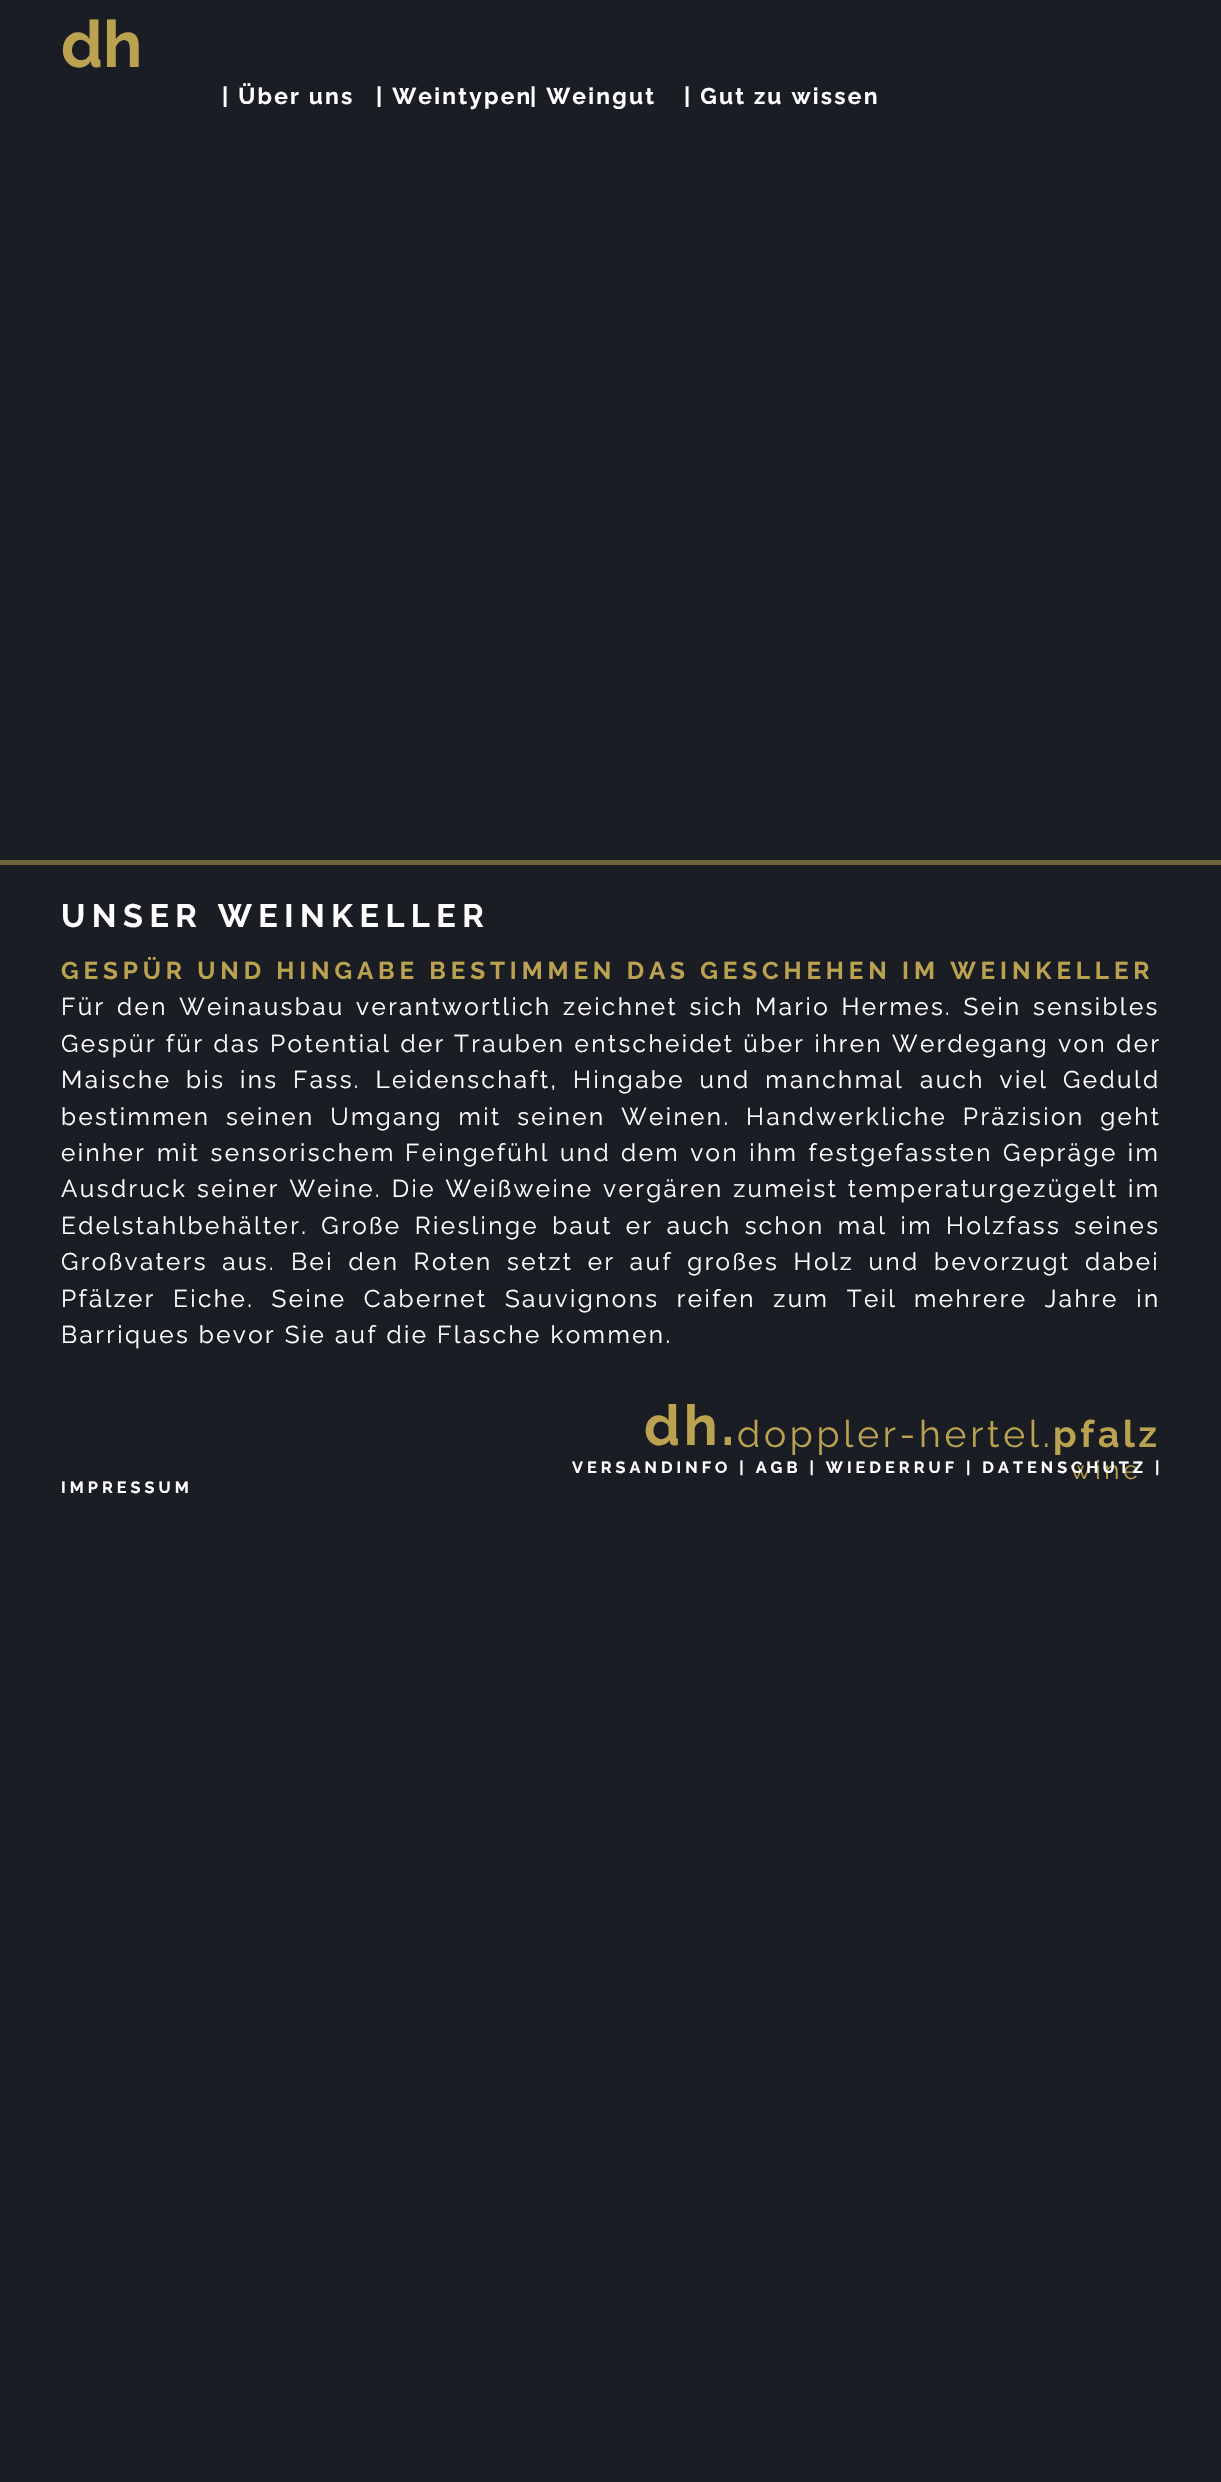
static SkFont makeFont(const char* family, int weight, float size, bool italic = false) {
  SkFontStyle style(weight, SkFontStyle::kNormal_Width,
    italic ? SkFontStyle::kItalic_Slant : SkFontStyle::kUpright_Slant);
  SkFont result(fontMgr->matchFamilyStyle(family, style), size);
  result.setSubpixel(true);
  return result;
}

static void text(SkCanvas* c, const char* s, float x, float y, const SkFont& font, SkColor color) {
  SkPaint ink(SkColor4f::FromColor(color));
  ink.setAntiAlias(true);
  c->drawString(s, x, y, font, ink);
}

static void spacedText(SkCanvas* c, const char* s, float x, float y, const SkFont& font, const SkPaint& ink, float letter, float word) {
  std::vector<SkGlyphID> glyphs(font.countText(s, strlen(s), SkTextEncoding::kUTF8));
  std::vector<float> xs(glyphs.size());
  font.textToGlyphs(s, strlen(s), SkTextEncoding::kUTF8, glyphs);
  font.getXPos(glyphs, xs, x);
  float extra = 0;
  for (size_t i = 0; i < glyphs.size(); i++) {
    xs[i] += extra;
    extra += letter + word * (glyphs[i] == font.unicharToGlyph(' '));
  }
  c->drawTextBlob(SkTextBlob::MakeFromPosHGlyphs(glyphs, xs, y, font), 0, 0, ink);
}

static void box(SkCanvas* c, float l, float t, float r, float b, SkColor color) {
  SkPaint ink(SkColor4f::FromColor(color));
  ink.setAntiAlias(true);
  c->drawRect(SkRect::MakeLTRB(l, t, r, b), ink);
}

void draw(SkCanvas* c) {
  SkPaint paint;
  paint.setAntiAlias(true);
  c->clear(0xff1b1d24);
  SkFont face1 = makeFont("Raleway", 700, 65);
  text(c, "dh", 61, 67, face1, 0xffbaa251);
  SkFont face2 = makeFont("Raleway", 700, 22.75f);
  paint.setColor(0xffffffff);
  spacedText(c, "| Über uns", 222, 104, face2, paint, 2.25f, 0);
  spacedText(c, "| Weintypen", 376, 104, face2, paint, 2.25f, 0);
  spacedText(c, "| Weingut", 530, 104, face2, paint, 2.25f, 0);
  spacedText(c, "| Gut zu wissen", 684, 104, face2, paint, 2.25f, 0);
  box(c, 0, 860, 1221, 865, 0xff70643c);
  SkFont face3 = makeFont("Raleway", 700, 32.4f);
  spacedText(c, "UNSER WEINKELLER", 61, 927, face3, paint, 6.5f, 0);
  SkFont face4 = makeFont("Raleway", 700, 24.3f);
  paint.setColor(0xffbaa251);
  spacedText(c, "GESPÜR UND HINGABE BESTIMMEN DAS GESCHEHEN IM WEINKELLER", 61, 979, face4, paint, 4.85f, -0.25f);
  SkFont face5 = makeFont("Raleway", 400, 24.3f);
  paint.setColor(0xffffffff);
  spacedText(c, "Für den Weinausbau verantwortlich zeichnet sich Mario Hermes. Sein sensibles", 61, 1015, face5, paint, 2.43f, 2.75f);
  spacedText(c, "Gespür für das Potential der", 61, 1052, face5, paint, 2.43f, 0.5f);
  spacedText(c, "Trauben entscheidet über ihren Werdegang von der", 454, 1052, face5, paint, 2.43f, 0.5f);
  spacedText(c, "Maische bis ins Fass. Leidenschaft, Hingabe und manchmal", 61, 1088, face5, paint, 2.43f, 6);
  spacedText(c, "auch viel Geduld", 920, 1088, face5, paint, 2.43f, 6);
  spacedText(c, "bestimmen seinen Umgang mit seinen Weinen. Handwerkliche Präzision geht", 61, 1125, face5, paint, 2.43f, 7);
  spacedText(c, "einher mit sensorischem", 61, 1161, face5, paint, 2.43f, 2);
  spacedText(c, "Feingefühl und dem von ihm festgefassten Gepräge im", 405, 1161, face5, paint, 2.43f, 1.5f);
  spacedText(c, "Ausdruck seiner Weine. Die Weißweine vergären zumeist", 61, 1197, face5, paint, 2.43f, 1);
  spacedText(c, "temperaturgezügelt im", 848, 1197, face5, paint, 2.43f, 1);
  spacedText(c, "Edelstahlbehälter. Große Rieslinge baut er auch schon mal im Holzfass seines", 61, 1234, face5, paint, 2.43f, 4.5f);
  spacedText(c, "Großvaters aus.", 61, 1270, face5, paint, 2.43f, 5.75f);
  spacedText(c, "Bei den Roten setzt er auf großes Holz und bevorzugt dabei", 291, 1270, face5, paint, 2.43f, 5.75f);
  spacedText(c, "Pfälzer Eiche. Seine Cabernet Sauvignons reifen zum Teil", 61, 1307, face5, paint, 2.43f, 8.75f);
  spacedText(c, "mehrere Jahre in", 914, 1307, face5, paint, 2.43f, 8.75f);
  spacedText(c, "Barriques bevor Sie auf die Flasche kommen.", 61, 1343, face5, paint, 2.43f, 0);
  SkFont face6 = makeFont("Raleway", 700, 56);
  paint.setColor(0xffbaa251);
  spacedText(c, "dh.", 644, 1445, face6, paint, 3.75f, 0);
  SkFont face7 = makeFont("Raleway", 400, 37.25f);
  spacedText(c, "doppler-hertel.", 737, 1447, face7, paint, 3.75f, 0);
  SkFont face8 = makeFont("Raleway", 700, 37.25f);
  spacedText(c, "pfalz", 1053, 1447, face8, paint, 3.75f, 0);
  SkFont face9 = makeFont("Raleway", 400, 26);
  spacedText(c, "wine", 1070, 1479, face9, paint, 3.75f, 0);
  SkFont face10 = makeFont("Raleway", 700, 16.2f);
  paint.setColor(0xffffffff);
  spacedText(c, "VERSANDINFO | AGB | WIEDERRUF | DATENSCHUTZ |", 572, 1473, face10, paint, 4.05f, 0);
  spacedText(c, "IMPRESSUM", 61, 1493, face10, paint, 4.05f, 0);
}
